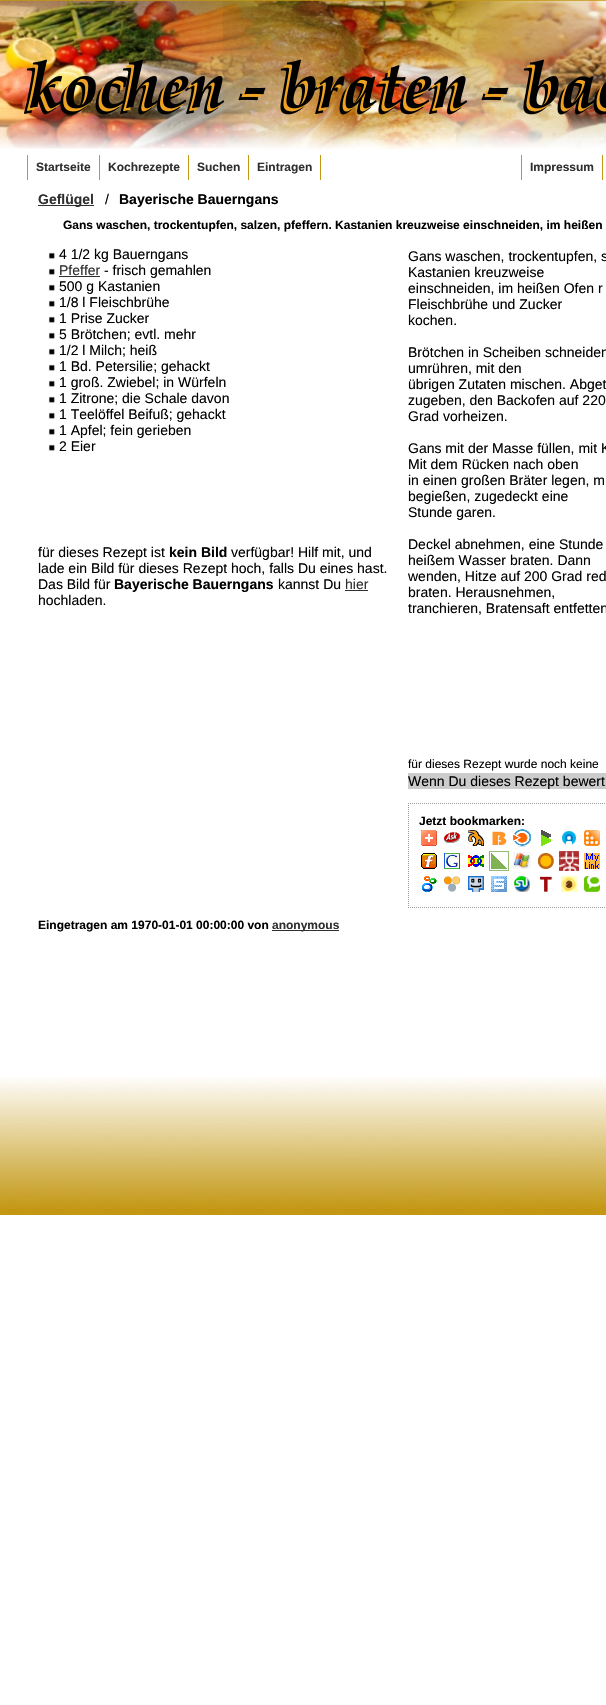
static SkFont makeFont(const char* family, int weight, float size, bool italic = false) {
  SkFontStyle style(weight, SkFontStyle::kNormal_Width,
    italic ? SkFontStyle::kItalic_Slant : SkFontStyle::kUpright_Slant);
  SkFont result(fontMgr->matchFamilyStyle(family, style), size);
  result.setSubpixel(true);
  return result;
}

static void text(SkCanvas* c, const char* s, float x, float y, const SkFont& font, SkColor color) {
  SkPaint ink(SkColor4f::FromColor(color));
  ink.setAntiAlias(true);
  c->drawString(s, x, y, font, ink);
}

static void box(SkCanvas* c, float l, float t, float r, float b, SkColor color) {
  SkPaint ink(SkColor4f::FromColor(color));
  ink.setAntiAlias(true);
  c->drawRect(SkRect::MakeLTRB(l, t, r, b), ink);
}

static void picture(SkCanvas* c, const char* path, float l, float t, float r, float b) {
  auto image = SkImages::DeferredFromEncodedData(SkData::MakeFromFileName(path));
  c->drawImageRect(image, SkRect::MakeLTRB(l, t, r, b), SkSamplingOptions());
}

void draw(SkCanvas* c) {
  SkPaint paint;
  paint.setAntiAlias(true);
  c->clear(0xffffffff);
  picture(c, "img_01.png", 0, 0, 606, 138);
  picture(c, "img_02.png", 0, 0, 606, 150);
  picture(c, "img_03.png", 24, 59, 606, 115);
  box(c, 99, 155, 100, 180, 0xffc49815);
  box(c, 27, 155, 28, 180, 0xffc49815);
  SkFont face1 = makeFont("Liberation Sans", 700, 12);
  text(c, "Startseite", 36, 171, face1, 0xff2f2f2f);
  box(c, 188, 155, 189, 180, 0xffc49815);
  text(c, "Kochrezepte", 108, 171, face1, 0xff2f2f2f);
  box(c, 248, 155, 249, 180, 0xffc49815);
  text(c, "Suchen", 197, 171, face1, 0xff2f2f2f);
  box(c, 320, 155, 321, 180, 0xffc49815);
  text(c, "Eintragen", 257, 171, face1, 0xff2f2f2f);
  box(c, 521, 155, 522, 180, 0xffc49815);
  box(c, 602, 155, 603, 180, 0xffc49815);
  text(c, "Impressum", 530, 171, face1, 0xff2f2f2f);
  box(c, 38, 205, 94, 206, 0xff2f2f2f);
  SkFont face2 = makeFont("Liberation Sans", 700, 14);
  text(c, "Geflügel", 38, 204, face2, 0xff2f2f2f);
  SkFont face3 = makeFont("Liberation Sans", 400, 14);
  text(c, "/", 105, 204, face3, 0xff000000);
  text(c, "Bayerische Bauerngans", 119, 204, face2, 0xff000000);
  text(c, "Gans waschen, trockentupfen, salzen, pfeffern. Kastanien kreuzweise einschneiden, im heißen", 63, 229, face1, 0xff000000);
  picture(c, "img_04.png", 48, 252, 55, 259);
  text(c, "4 1/2 kg Bauerngans", 59, 259, face3, 0xff000000);
  picture(c, "img_04.png", 48, 268, 55, 275);
  text(c, "Pfeffer", 59, 275, face3, 0xff2f2f2f);
  box(c, 59, 276, 100, 277, 0xff2f2f2f);
  text(c, "- frisch gemahlen", 104, 275, face3, 0xff000000);
  picture(c, "img_04.png", 48, 284, 55, 291);
  text(c, "500 g Kastanien", 59, 291, face3, 0xff000000);
  picture(c, "img_04.png", 48, 300, 55, 307);
  text(c, "1/8 l Fleischbrühe", 59, 307, face3, 0xff000000);
  picture(c, "img_04.png", 48, 316, 55, 323);
  text(c, "1 Prise Zucker", 59, 323, face3, 0xff000000);
  picture(c, "img_04.png", 48, 332, 55, 339);
  text(c, "5 Brötchen; evtl. mehr", 59, 339, face3, 0xff000000);
  picture(c, "img_04.png", 48, 348, 55, 355);
  text(c, "1/2 l Milch; heiß", 59, 355, face3, 0xff000000);
  picture(c, "img_04.png", 48, 364, 55, 371);
  text(c, "1 Bd. Petersilie; gehackt", 59, 371, face3, 0xff000000);
  picture(c, "img_04.png", 48, 380, 55, 387);
  text(c, "1 groß. Zwiebel; in Würfeln", 59, 387, face3, 0xff000000);
  picture(c, "img_04.png", 48, 396, 55, 403);
  text(c, "1 Zitrone; die Schale davon", 59, 403, face3, 0xff000000);
  picture(c, "img_04.png", 48, 412, 55, 419);
  text(c, "1 Teelöffel Beifuß; gehackt", 59, 419, face3, 0xff000000);
  picture(c, "img_04.png", 48, 428, 55, 435);
  text(c, "1 Apfel; fein gerieben", 59, 435, face3, 0xff000000);
  picture(c, "img_04.png", 48, 444, 55, 451);
  text(c, "2 Eier", 59, 451, face3, 0xff000000);
  text(c, "für dieses Rezept ist", 38, 557, face3, 0xff000000);
  text(c, "kein Bild", 169, 557, face2, 0xff000000);
  text(c, "verfügbar! Hilf mit, und", 231, 557, face3, 0xff000000);
  text(c, "lade ein Bild für dieses Rezept hoch, falls Du eines hast.", 38, 573, face3, 0xff000000);
  text(c, "Das Bild für", 38, 589, face3, 0xff000000);
  text(c, "Bayerische Bauerngans", 114, 589, face2, 0xff000000);
  text(c, "kannst Du", 278, 589, face3, 0xff000000);
  text(c, "hier", 345, 589, face3, 0xff2f2f2f);
  box(c, 345, 590, 368, 591, 0xff2f2f2f);
  text(c, "hochladen.", 38, 605, face3, 0xff000000);
  text(c, "Gans waschen, trockentupfen, s", 408, 261, face3, 0xff000000);
  text(c, "Kastanien kreuzweise", 408, 277, face3, 0xff000000);
  text(c, "einschneiden, im heißen Ofen r", 408, 293, face3, 0xff000000);
  text(c, "Fleischbrühe und Zucker", 408, 309, face3, 0xff000000);
  text(c, "kochen.", 408, 325, face3, 0xff000000);
  text(c, "Brötchen in Scheiben schneiden", 408, 357, face3, 0xff000000);
  text(c, "umrühren, mit den", 408, 373, face3, 0xff000000);
  text(c, "übrigen Zutaten mischen. Abget", 408, 389, face3, 0xff000000);
  text(c, "zugeben, den Backofen auf 220", 408, 405, face3, 0xff000000);
  text(c, "Grad vorheizen.", 408, 421, face3, 0xff000000);
  text(c, "Gans mit der Masse füllen, mit K", 408, 453, face3, 0xff000000);
  text(c, "Mit dem Rücken nach oben", 408, 469, face3, 0xff000000);
  text(c, "in einen großen Bräter legen, m", 408, 485, face3, 0xff000000);
  text(c, "begießen, zugedeckt eine", 408, 501, face3, 0xff000000);
  text(c, "Stunde garen.", 408, 517, face3, 0xff000000);
  text(c, "Deckel abnehmen, eine Stunde", 408, 549, face3, 0xff000000);
  text(c, "heißem Wasser braten. Dann", 408, 565, face3, 0xff000000);
  text(c, "wenden, Hitze auf 200 Grad red", 408, 581, face3, 0xff000000);
  text(c, "braten. Herausnehmen,", 408, 597, face3, 0xff000000);
  text(c, "tranchieren, Bratensaft entfetten", 408, 613, face3, 0xff000000);
  SkFont face4 = makeFont("Liberation Sans", 400, 12);
  text(c, "für dieses Rezept wurde noch keine", 408, 768, face4, 0xff000000);
  box(c, 408, 773, 606, 789, 0xffcccccc);
  text(c, "Wenn Du dieses Rezept bewert", 408, 786, face3, 0xff000000);
  paint.setStyle(SkPaint::kStroke_Style);
  paint.setStrokeWidth(1);
  paint.setColor(0xff999999);
  paint.setPathEffect(SkDashPathEffect::Make({{1, 1}}, 0));
  c->drawPath(SkPathBuilder().moveTo(408, 803.5f).lineTo(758, 803.5f).detach(), paint);
  paint.setPathEffect(nullptr);
  paint.setPathEffect(SkDashPathEffect::Make({{1, 1}}, 0));
  c->drawPath(SkPathBuilder().moveTo(408, 907.5f).lineTo(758, 907.5f).detach(), paint);
  paint.setPathEffect(nullptr);
  paint.setPathEffect(SkDashPathEffect::Make({{1, 1}}, 0));
  c->drawPath(SkPathBuilder().moveTo(408.5f, 803).lineTo(408.5f, 908).detach(), paint);
  paint.setPathEffect(nullptr);
  text(c, "Jetzt bookmarken:", 419, 825, face1, 0xff000000);
  picture(c, "img_05.png", 421, 830, 437, 846);
  picture(c, "img_06.png", 444, 832, 460, 843);
  picture(c, "img_07.png", 468, 830, 484, 846);
  picture(c, "img_08.png", 492, 831, 507, 845);
  picture(c, "img_09.png", 513, 829, 531, 847);
  picture(c, "img_10.png", 541, 830, 551, 846);
  picture(c, "img_11.png", 562, 831, 576, 845);
  picture(c, "img_12.png", 584, 830, 600, 846);
  picture(c, "img_13.png", 421, 853, 437, 869);
  picture(c, "img_14.png", 444, 853, 460, 869);
  picture(c, "img_15.png", 468, 855, 484, 867);
  picture(c, "img_16.png", 489, 851, 509, 871);
  picture(c, "img_17.png", 513, 852, 531, 869);
  picture(c, "img_18.png", 538, 853, 554, 869);
  picture(c, "img_19.png", 559, 851, 579, 871);
  picture(c, "img_20.png", 584, 853, 600, 869);
  picture(c, "img_21.png", 422, 876, 437, 892);
  picture(c, "img_22.png", 444, 876, 460, 892);
  picture(c, "img_23.png", 468, 876, 484, 892);
  picture(c, "img_24.png", 491, 876, 507, 892);
  picture(c, "img_25.png", 513, 875, 530, 892);
  picture(c, "img_26.png", 540, 876, 552, 892);
  picture(c, "img_27.png", 561, 876, 577, 892);
  picture(c, "img_28.png", 584, 876, 600, 892);
  text(c, "Eingetragen am 1970-01-01 00:00:00 von", 38, 929, face1, 0xff000000);
  box(c, 272, 930, 339, 931, 0xff2f2f2f);
  text(c, "anonymous", 272, 929, face1, 0xff2f2f2f);
  picture(c, "img_29.png", 0, 1076, 606, 1215);
}
